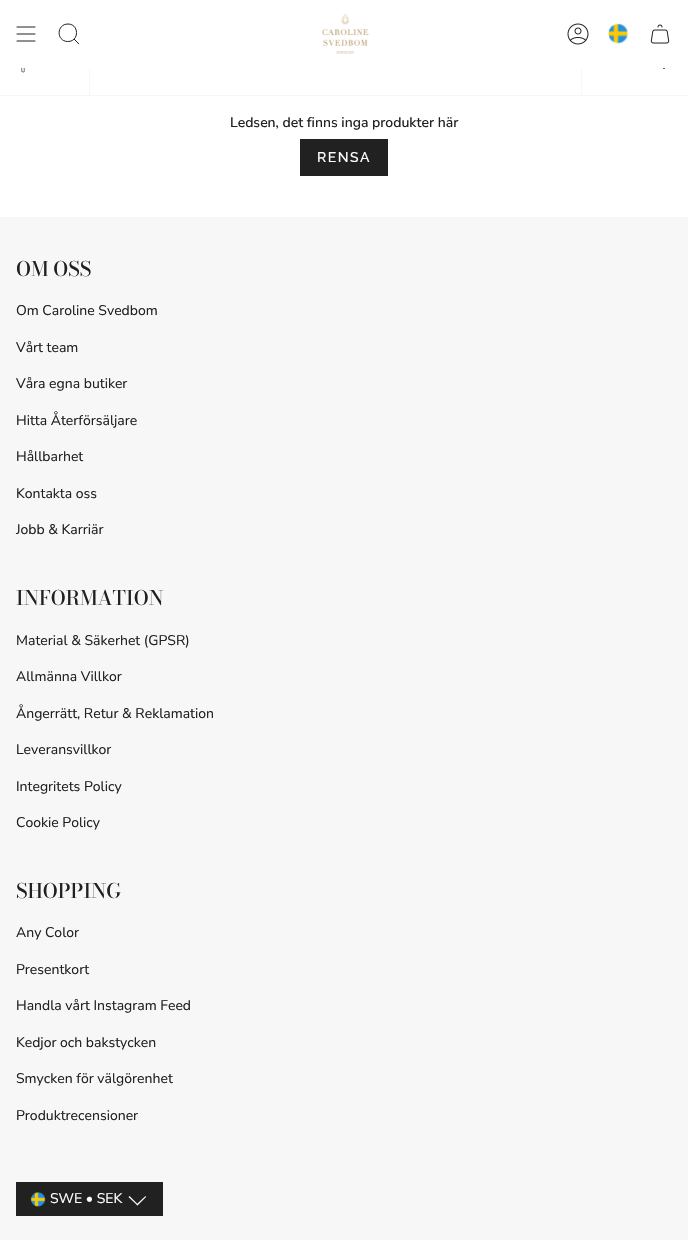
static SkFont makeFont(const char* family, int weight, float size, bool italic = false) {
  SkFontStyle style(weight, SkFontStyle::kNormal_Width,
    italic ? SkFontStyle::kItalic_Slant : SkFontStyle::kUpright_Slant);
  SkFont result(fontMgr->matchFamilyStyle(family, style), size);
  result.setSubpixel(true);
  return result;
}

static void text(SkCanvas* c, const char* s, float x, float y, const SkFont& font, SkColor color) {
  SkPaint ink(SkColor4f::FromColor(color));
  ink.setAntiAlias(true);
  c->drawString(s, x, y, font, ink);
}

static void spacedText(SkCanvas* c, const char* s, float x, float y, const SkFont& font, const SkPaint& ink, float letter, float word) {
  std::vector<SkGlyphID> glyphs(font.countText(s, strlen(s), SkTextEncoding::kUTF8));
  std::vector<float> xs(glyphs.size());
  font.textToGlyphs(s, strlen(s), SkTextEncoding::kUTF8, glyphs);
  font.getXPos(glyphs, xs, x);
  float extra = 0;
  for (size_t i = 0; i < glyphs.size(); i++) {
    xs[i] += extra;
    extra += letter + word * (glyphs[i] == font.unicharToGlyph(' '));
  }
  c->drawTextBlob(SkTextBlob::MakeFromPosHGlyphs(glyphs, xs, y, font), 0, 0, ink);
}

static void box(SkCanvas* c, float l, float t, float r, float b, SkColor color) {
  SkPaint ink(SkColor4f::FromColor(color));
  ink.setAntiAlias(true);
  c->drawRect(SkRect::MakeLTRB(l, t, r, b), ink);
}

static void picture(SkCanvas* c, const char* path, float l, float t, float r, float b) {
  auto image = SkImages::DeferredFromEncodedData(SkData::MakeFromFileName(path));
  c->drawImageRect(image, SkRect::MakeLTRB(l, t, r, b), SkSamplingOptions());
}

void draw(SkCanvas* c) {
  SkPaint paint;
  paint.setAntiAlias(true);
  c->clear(0xffffffff);
  paint.setStyle(SkPaint::kStroke_Style);
  paint.setStrokeWidth(1);
  paint.setStrokeCap(SkPaint::kRound_Cap);
  paint.setStrokeJoin(SkPaint::kRound_Join);
  paint.setColor(0xff212121);
  c->drawPath(SkPathBuilder().moveTo(17, 27).lineTo(35, 27).moveTo(17, 34).lineTo(35, 34).moveTo(17, 41).lineTo(35, 41).detach(), paint);
  paint.setStrokeCap(SkPaint::kButt_Cap);
  paint.setStrokeJoin(SkPaint::kMiter_Join);
  c->drawPath(SkPathBuilder().moveTo(68, 24).cubicTo(79.5f, 24, 79.5f, 42, 67.5f, 41.5f).cubicTo(56, 41, 56.5f, 24, 68, 24).close().moveTo(74, 39).lineTo(79, 44).detach(), paint);
  picture(c, "img_01.png", 322, 14, 369, 54);
  picture(c, "img_02.png", 567, 23, 589, 45);
  picture(c, "img_03.png", 608, 23, 629, 44);
  picture(c, "img_04.png", 650, 24, 670, 44);
  paint.setStrokeWidth(0.7f);
  paint.setStrokeCap(SkPaint::kRound_Cap);
  paint.setStrokeJoin(SkPaint::kRound_Join);
  c->drawPath(SkPathBuilder().moveTo(660, 65).lineTo(664, 69).lineTo(668, 65).detach(), paint);
  box(c, 659, 64, 669, 68, 0xffffffff);
  box(c, 0, 95, 688, 96, 0xfff7f7f7);
  box(c, 89, 68, 90, 95, 0xfff7f7f7);
  picture(c, "img_05.png", 21, 68, 25, 73);
  box(c, 581, 68, 582, 95, 0xfff7f7f7);
  SkFont face1 = makeFont("Nunito Sans", 500, 14);
  text(c, "Ledsen, det finns inga produkter här", 230, 127, face1, 0xff212121);
  box(c, 300, 139, 388, 176, 0xff212121);
  SkFont face2 = makeFont("Raleway", 500, 14);
  paint.setStyle(SkPaint::kFill_Style);
  paint.setColor(0xffffffff);
  spacedText(c, "RENSA", 317, 162, face2, paint, 1.5f, 0);
  box(c, 0, 217, 688, 1240, 0xfff7f7f7);
  SkFont face3 = makeFont("Bodoni Moda", 500, 20);
  text(c, "OM OSS", 16, 276, face3, 0xff212121);
  SkFont face4 = makeFont("Nunito Sans", 400, 14);
  text(c, "Om Caroline Svedbom", 16, 315, face4, 0xff212121);
  text(c, "Vårt team", 16, 352, face4, 0xff212121);
  text(c, "Våra egna butiker", 16, 388, face4, 0xff212121);
  text(c, "Hitta Återförsäljare", 16, 425, face4, 0xff212121);
  text(c, "Hållbarhet", 16, 461, face4, 0xff212121);
  text(c, "Kontakta oss", 16, 498, face4, 0xff212121);
  text(c, "Jobb & Karriär", 16, 534, face4, 0xff212121);
  text(c, "INFORMATION", 16, 605, face3, 0xff212121);
  text(c, "Material & Säkerhet (GPSR)", 16, 645, face4, 0xff212121);
  text(c, "Allmänna Villkor", 16, 681, face4, 0xff212121);
  text(c, "Ångerrätt, Retur & Reklamation", 16, 718, face4, 0xff212121);
  text(c, "Leveransvillkor", 16, 754, face4, 0xff212121);
  text(c, "Integritets Policy", 16, 791, face4, 0xff212121);
  text(c, "Cookie Policy", 16, 827, face4, 0xff212121);
  text(c, "SHOPPING", 16, 898, face3, 0xff212121);
  text(c, "Any Color", 16, 937, face4, 0xff212121);
  text(c, "Presentkort", 16, 974, face4, 0xff212121);
  text(c, "Handla vårt Instagram Feed", 16, 1010, face4, 0xff212121);
  text(c, "Kedjor och bakstycken", 16, 1047, face4, 0xff212121);
  text(c, "Smycken för välgörenhet", 16, 1083, face4, 0xff212121);
  text(c, "Produktrecensioner", 16, 1120, face4, 0xff212121);
  box(c, 16, 1182, 163, 1216, 0xff212121);
  picture(c, "img_06.png", 30, 1192, 46, 1207);
  text(c, "SWE • SEK", 50, 1203, face4, 0xffffffff);
  c->drawPath(SkPathBuilder().moveTo(146, 1197).lineTo(137.5f, 1205.5f).lineTo(136.5f, 1204.5f).lineTo(145.5f, 1196).close().detach(), paint);
  c->drawPath(SkPathBuilder().moveTo(138, 1204.5f).lineTo(137.5f, 1205.5f).lineTo(128.5f, 1197).lineTo(129.5f, 1196).close().detach(), paint);
}
